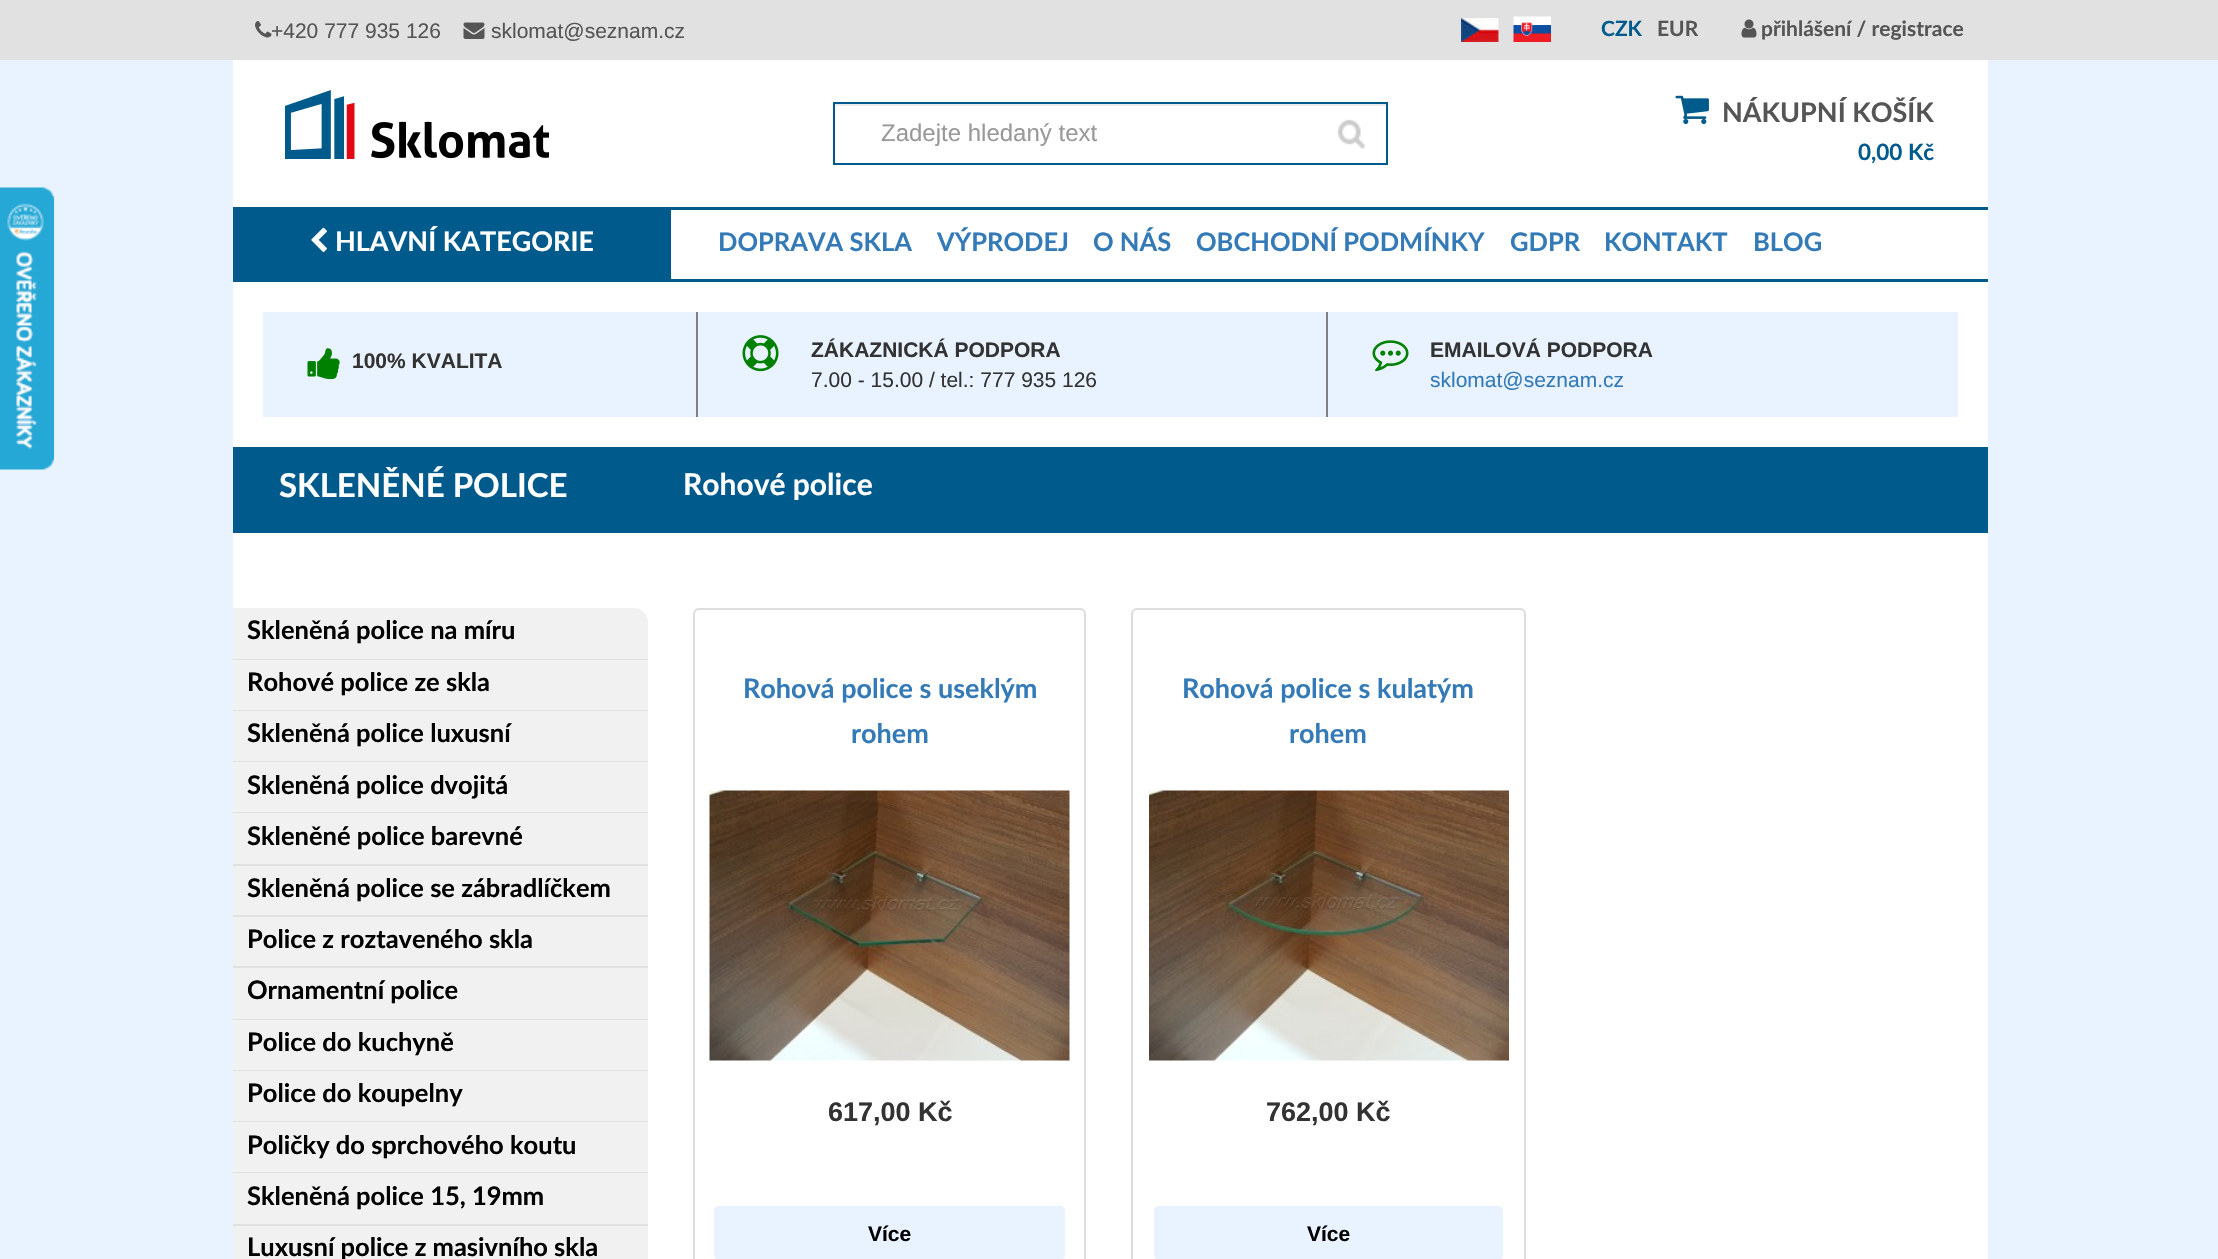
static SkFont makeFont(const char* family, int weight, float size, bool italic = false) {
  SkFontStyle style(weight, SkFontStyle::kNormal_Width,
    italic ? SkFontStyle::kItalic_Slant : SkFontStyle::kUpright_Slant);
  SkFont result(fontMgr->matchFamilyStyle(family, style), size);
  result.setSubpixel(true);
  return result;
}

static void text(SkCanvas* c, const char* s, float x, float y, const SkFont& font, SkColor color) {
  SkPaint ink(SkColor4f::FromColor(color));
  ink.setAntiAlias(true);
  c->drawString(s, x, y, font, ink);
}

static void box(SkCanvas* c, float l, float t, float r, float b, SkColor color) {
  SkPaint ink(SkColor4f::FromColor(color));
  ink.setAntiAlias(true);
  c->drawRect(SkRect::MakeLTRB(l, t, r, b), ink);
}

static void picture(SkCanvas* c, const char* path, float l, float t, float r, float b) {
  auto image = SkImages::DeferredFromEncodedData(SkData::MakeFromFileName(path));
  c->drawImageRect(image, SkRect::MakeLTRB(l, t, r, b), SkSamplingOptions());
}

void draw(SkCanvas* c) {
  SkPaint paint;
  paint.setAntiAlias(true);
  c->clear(0xffe8f3ff);
  box(c, 0, 0, 2218, 60, 0xffe1e1e1);
  picture(c, "img_01.png", 255, 21, 272, 38);
  SkFont face1 = makeFont("Liberation Sans", 400, 21);
  text(c, "+420 777 935 126", 271, 38, face1, 0xff555555);
  picture(c, "img_02.png", 463, 22, 485, 39);
  text(c, "sklomat@seznam.cz", 491, 38, face1, 0xff555555);
  picture(c, "img_03.png", 1461, 18, 1499, 42);
  picture(c, "img_04.png", 1513, 16, 1551, 42);
  SkFont face2 = makeFont("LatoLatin", 700, 21);
  text(c, "CZK", 1601, 36, face2, 0xff005a8c);
  text(c, "EUR", 1657, 36, face2, 0xff555555);
  picture(c, "img_05.png", 1741, 19, 1757, 38);
  text(c, "přihlášení / registrace", 1761, 36, face2, 0xff555555);
  picture(c, "img_06.png", 0, 187, 54, 470);
  box(c, 233, 60, 1988, 1259, 0xffffffff);
  picture(c, "img_07.png", 285, 90, 549, 159);
  picture(c, "img_08.png", 1337, 119, 1366, 149);
  box(c, 834, 104, 1386, 106, 0xffececec);
  paint.setStyle(SkPaint::kStroke_Style);
  paint.setStrokeWidth(2);
  paint.setColor(0xff005a8c);
  c->drawRect(SkRect::MakeLTRB(834, 103, 1387, 164), paint);
  SkFont face3 = makeFont("Liberation Sans", 400, 24);
  text(c, "Zadejte hledaný text", 881, 141, face3, 0xff999999);
  picture(c, "img_09.png", 1675, 95, 1709, 125);
  SkFont face4 = makeFont("LatoLatin", 700, 27);
  text(c, "NÁKUPNÍ KOŠÍK", 1722, 122, face4, 0xff555555);
  SkFont face5 = makeFont("LatoLatin", 700, 22.5f);
  text(c, "0,00 Kč", 1858, 160, face5, 0xff005a8c);
  box(c, 233, 207, 671, 282, 0xff005a8c);
  picture(c, "img_10.png", 311, 227, 327, 252);
  text(c, "HLAVNÍ KATEGORIE", 335, 251, face4, 0xffffffff);
  box(c, 671, 207, 1988, 210, 0xff005a8c);
  SkFont face6 = makeFont("LatoLatin", 700, 25.5f);
  text(c, "DOPRAVA SKLA", 718, 251, face6, 0xff337ab7);
  text(c, "VÝPRODEJ", 937, 251, face6, 0xff337ab7);
  text(c, "O NÁS", 1093, 251, face6, 0xff337ab7);
  text(c, "OBCHODNÍ PODMÍNKY", 1196, 251, face6, 0xff337ab7);
  text(c, "GDPR", 1510, 251, face6, 0xff337ab7);
  text(c, "KONTAKT", 1604, 251, face6, 0xff337ab7);
  text(c, "BLOG", 1753, 251, face6, 0xff337ab7);
  box(c, 671, 279, 1988, 282, 0xff005a8c);
  box(c, 263, 312, 1958, 417, 0xffe8f3ff);
  box(c, 696, 312, 698, 417, 0xff808080);
  picture(c, "img_11.png", 307, 348, 340, 380);
  SkFont face7 = makeFont("Liberation Sans", 700, 21);
  text(c, "100% KVALITA", 352, 368, face7, 0xff333333);
  box(c, 1326, 312, 1328, 417, 0xff808080);
  picture(c, "img_12.png", 742, 335, 779, 372);
  text(c, "ZÁKAZNICKÁ PODPORA", 811, 357, face7, 0xff333333);
  text(c, "7.00 - 15.00 / tel.: 777 935 126", 811, 387, face1, 0xff333333);
  picture(c, "img_13.png", 1372, 340, 1409, 372);
  text(c, "EMAILOVÁ PODPORA", 1430, 357, face7, 0xff333333);
  text(c, "sklomat@seznam.cz", 1430, 387, face1, 0xff337ab7);
  box(c, 233, 447, 1988, 533, 0xff005a8c);
  SkFont face8 = makeFont("LatoLatin", 700, 33);
  text(c, "SKLENĚNÉ POLICE", 279, 497, face8, 0xffffffff);
  SkFont face9 = makeFont("LatoLatin", 700, 30);
  text(c, "Rohové police", 683, 495, face9, 0xffffffff);
  paint.setStyle(SkPaint::kFill_Style);
  paint.setColor(0xfff1f1f1);
  c->drawPath(SkPathBuilder().moveTo(233, 608).lineTo(633, 608).cubicTo(641.5f, 608, 648, 614.5f, 648, 623).lineTo(648, 660).lineTo(233, 660).close().detach(), paint);
  box(c, 233, 659, 648, 660, 0xffe1e1e1);
  text(c, "Skleněná police na míru", 247, 639, face6, 0xff000000);
  box(c, 233, 660, 648, 710, 0xfff1f1f1);
  box(c, 233, 710, 648, 711, 0xffe1e1e1);
  text(c, "Rohové police ze skla", 247, 691, face6, 0xff000000);
  box(c, 233, 711, 648, 761, 0xfff1f1f1);
  box(c, 233, 761, 648, 762, 0xffe1e1e1);
  text(c, "Skleněná police luxusní", 247, 742, face6, 0xff000000);
  box(c, 233, 762, 648, 812, 0xfff1f1f1);
  box(c, 233, 812, 648, 813, 0xffe1e1e1);
  text(c, "Skleněná police dvojitá", 247, 794, face6, 0xff000000);
  box(c, 233, 813, 648, 864, 0xfff1f1f1);
  box(c, 233, 864, 648, 866, 0xffe1e1e1);
  text(c, "Skleněné police barevné", 247, 845, face6, 0xff000000);
  box(c, 233, 866, 648, 915, 0xfff1f1f1);
  box(c, 233, 915, 648, 917, 0xffe1e1e1);
  text(c, "Skleněná police se zábradlíčkem", 247, 897, face6, 0xff000000);
  box(c, 233, 917, 648, 966, 0xfff1f1f1);
  box(c, 233, 966, 648, 968, 0xffe1e1e1);
  text(c, "Police z roztaveného skla", 247, 948, face6, 0xff000000);
  box(c, 233, 968, 648, 1019, 0xfff1f1f1);
  box(c, 233, 1019, 648, 1020, 0xffe1e1e1);
  text(c, "Ornamentní police", 247, 999, face6, 0xff000000);
  box(c, 233, 1020, 648, 1070, 0xfff1f1f1);
  box(c, 233, 1070, 648, 1071, 0xffe1e1e1);
  text(c, "Police do kuchyně", 247, 1051, face6, 0xff000000);
  box(c, 233, 1071, 648, 1121, 0xfff1f1f1);
  box(c, 233, 1121, 648, 1122, 0xffe1e1e1);
  text(c, "Police do koupelny", 247, 1102, face6, 0xff000000);
  box(c, 233, 1122, 648, 1172, 0xfff1f1f1);
  box(c, 233, 1172, 648, 1173, 0xffe1e1e1);
  text(c, "Poličky do sprchového koutu", 247, 1154, face6, 0xff000000);
  box(c, 233, 1173, 648, 1224, 0xfff1f1f1);
  box(c, 233, 1224, 648, 1226, 0xffe1e1e1);
  text(c, "Skleněná police 15, 19mm", 247, 1205, face6, 0xff000000);
  box(c, 233, 1226, 648, 1259, 0xfff1f1f1);
  text(c, "Luxusní police z masivního skla", 247, 1256, face6, 0xff000000);
  paint.setStyle(SkPaint::kStroke_Style);
  paint.setColor(0xffdddddd);
  c->drawRoundRect(SkRect::MakeLTRB(694, 609, 1085, 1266), 5, 5, paint);
  text(c, "Rohová police s useklým", 743, 698, face4, 0xff337ab7);
  text(c, "rohem", 851, 743, face4, 0xff337ab7);
  picture(c, "img_14.png", 709, 790, 1070, 1061);
  SkFont face10 = makeFont("Liberation Sans", 700, 27);
  text(c, "617,00 Kč", 828, 1121, face10, 0xff333333);
  paint.setStyle(SkPaint::kFill_Style);
  paint.setColor(0xffe8f3ff);
  c->drawRoundRect(SkRect::MakeLTRB(715.5f, 1207.5f, 1063.5f, 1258.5f), 3.5f, 3.5f, paint);
  paint.setStyle(SkPaint::kStroke_Style);
  paint.setStrokeWidth(3);
  c->drawRoundRect(SkRect::MakeLTRB(715.5f, 1207.5f, 1063.5f, 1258.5f), 3.5f, 3.5f, paint);
  text(c, "Více", 868, 1241, face7, 0xff000000);
  paint.setStrokeWidth(2);
  paint.setColor(0xffdddddd);
  c->drawRoundRect(SkRect::MakeLTRB(1132, 609, 1525, 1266), 5, 5, paint);
  text(c, "Rohová police s kulatým", 1182, 698, face4, 0xff337ab7);
  text(c, "rohem", 1289, 743, face4, 0xff337ab7);
  picture(c, "img_15.png", 1149, 790, 1509, 1061);
  text(c, "762,00 Kč", 1266, 1121, face10, 0xff333333);
  paint.setStyle(SkPaint::kFill_Style);
  paint.setColor(0xffe8f3ff);
  c->drawRoundRect(SkRect::MakeLTRB(1155.5f, 1207.5f, 1501.5f, 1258.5f), 3.5f, 3.5f, paint);
  paint.setStyle(SkPaint::kStroke_Style);
  paint.setStrokeWidth(3);
  c->drawRoundRect(SkRect::MakeLTRB(1155.5f, 1207.5f, 1501.5f, 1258.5f), 3.5f, 3.5f, paint);
  text(c, "Více", 1307, 1241, face7, 0xff000000);
}
